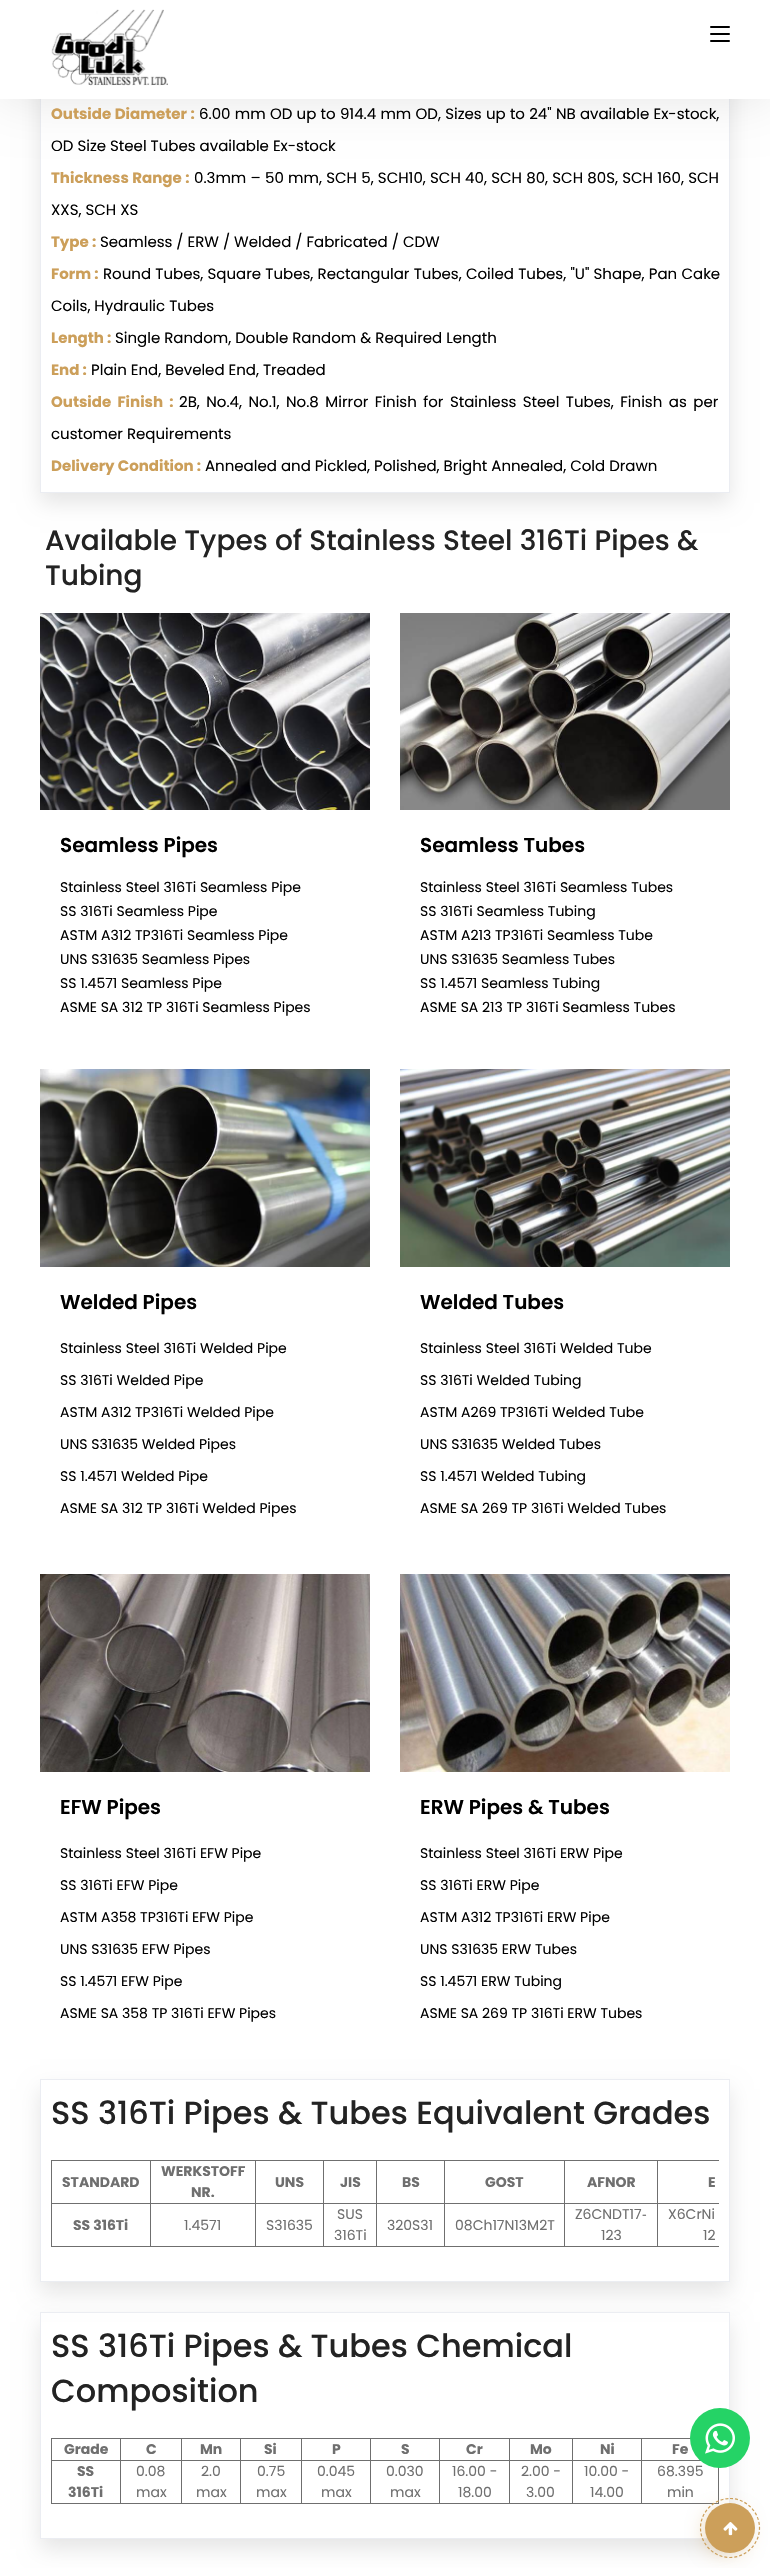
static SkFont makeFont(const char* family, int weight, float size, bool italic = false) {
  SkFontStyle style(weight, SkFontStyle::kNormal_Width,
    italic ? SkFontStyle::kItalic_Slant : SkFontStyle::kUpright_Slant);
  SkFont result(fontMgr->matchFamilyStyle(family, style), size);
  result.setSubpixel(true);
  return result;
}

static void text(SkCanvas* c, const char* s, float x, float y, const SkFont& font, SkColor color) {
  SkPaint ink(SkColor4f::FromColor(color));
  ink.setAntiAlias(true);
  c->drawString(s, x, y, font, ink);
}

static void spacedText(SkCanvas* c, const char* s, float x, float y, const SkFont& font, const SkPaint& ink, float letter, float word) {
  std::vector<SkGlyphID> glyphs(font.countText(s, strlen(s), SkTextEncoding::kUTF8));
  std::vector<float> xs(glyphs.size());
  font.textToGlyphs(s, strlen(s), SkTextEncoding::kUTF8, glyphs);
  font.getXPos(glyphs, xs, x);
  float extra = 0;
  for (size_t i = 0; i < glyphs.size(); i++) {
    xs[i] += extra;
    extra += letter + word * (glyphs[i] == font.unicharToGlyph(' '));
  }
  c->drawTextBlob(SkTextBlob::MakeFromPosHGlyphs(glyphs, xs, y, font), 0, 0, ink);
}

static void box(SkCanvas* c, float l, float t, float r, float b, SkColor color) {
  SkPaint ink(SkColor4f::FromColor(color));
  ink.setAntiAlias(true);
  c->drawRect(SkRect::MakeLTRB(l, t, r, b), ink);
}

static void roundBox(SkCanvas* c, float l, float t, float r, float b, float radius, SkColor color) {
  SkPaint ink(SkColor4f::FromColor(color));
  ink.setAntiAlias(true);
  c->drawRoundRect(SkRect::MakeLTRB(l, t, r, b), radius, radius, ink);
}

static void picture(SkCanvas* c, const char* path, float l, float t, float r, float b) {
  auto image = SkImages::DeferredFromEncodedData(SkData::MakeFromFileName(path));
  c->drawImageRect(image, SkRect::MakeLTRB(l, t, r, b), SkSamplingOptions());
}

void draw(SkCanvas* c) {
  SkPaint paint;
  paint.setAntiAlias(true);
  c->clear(0xffffffff);
  c->save();
  c->clipPath(SkPathBuilder(SkPathFillType::kEvenOdd).moveTo(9, 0).lineTo(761, 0).lineTo(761, 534).lineTo(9, 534).close().moveTo(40, -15).lineTo(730, -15).lineTo(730, 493).lineTo(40, 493).close().detach(), true);
  paint.setColor(0x1a000000);
  paint.setMaskFilter(SkMaskFilter::MakeBlur(kNormal_SkBlurStyle, 10));
  c->drawRect(SkRect::MakeLTRB(40, -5, 730, 503), paint);
  paint.setMaskFilter(nullptr);
  c->restore();
  paint.setStyle(SkPaint::kStroke_Style);
  paint.setStrokeWidth(1);
  paint.setColor(0xffebedf2);
  c->drawRect(SkRect::MakeLTRB(40.5f, -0.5f, 729.5f, 492.5f), paint);
  paint.setStyle(SkPaint::kFill_Style);
  paint.setColor(0x1a000000);
  paint.setMaskFilter(SkMaskFilter::MakeBlur(kNormal_SkBlurStyle, 25));
  c->drawRect(SkRect::MakeLTRB(0, 0, 770, 99), paint);
  paint.setMaskFilter(nullptr);
  box(c, 0, 0, 770, 99, 0xffffffff);
  picture(c, "img_01.png", 51, 9, 168, 86);
  roundBox(c, 710, 26, 730, 28, 1, 0xff000000);
  roundBox(c, 710, 33, 730, 35, 1, 0xff000000);
  roundBox(c, 710, 40, 730, 42, 1, 0xff000000);
  SkFont face1 = makeFont("Poppins", 700, 15);
  paint.setColor(0xffcc9f5a);
  spacedText(c, "Outside Diameter :", 51, 119, face1, paint, 0, 0.25f);
  SkFont face2 = makeFont("Poppins", 400, 15);
  paint.setColor(0xff000000);
  spacedText(c, "6.00 mm OD up to 914.4 mm OD, Sizes up to 24\" NB available Ex-stock,", 199, 119, face2, paint, 0, 0.25f);
  text(c, "OD Size Steel Tubes available Ex-stock", 51, 151, face2, 0xff000000);
  paint.setColor(0xffcc9f5a);
  spacedText(c, "Thickness Range :", 51, 183, face1, paint, 0, 0.25f);
  paint.setColor(0xff000000);
  spacedText(c, "0.3mm – 50 mm, SCH 5, SCH10, SCH 40, SCH 80, SCH 80S, SCH 160, SCH", 194, 183, face2, paint, 0, 0.25f);
  text(c, "XXS, SCH XS", 51, 215, face2, 0xff000000);
  text(c, "Type :", 51, 247, face1, 0xffcc9f5a);
  text(c, "Seamless / ERW / Welded / Fabricated / CDW", 100, 247, face2, 0xff000000);
  text(c, "Form :", 51, 279, face1, 0xffcc9f5a);
  spacedText(c, "Round Tubes, Square Tubes, Rectangular Tubes, Coiled Tubes, \"U\" Shape, Pan Cake", 103, 279, face2, paint, 0, 0.25f);
  text(c, "Coils, Hydraulic Tubes", 51, 311, face2, 0xff000000);
  text(c, "Length :", 51, 343, face1, 0xffcc9f5a);
  text(c, "Single Random, Double Random & Required Length", 115, 343, face2, 0xff000000);
  text(c, "End :", 51, 375, face1, 0xffcc9f5a);
  text(c, "Plain End, Beveled End, Treaded", 91, 375, face2, 0xff000000);
  paint.setColor(0xffcc9f5a);
  spacedText(c, "Outside Finish :", 51, 407, face1, paint, 0, 3);
  paint.setColor(0xff000000);
  spacedText(c, "2B, No.4, No.1, No.8 Mirror Finish for Stainless Steel Tubes, Finish as per", 179, 407, face2, paint, 0, 2.5f);
  text(c, "customer Requirements", 51, 439, face2, 0xff000000);
  text(c, "Delivery Condition :", 51, 471, face1, 0xffcc9f5a);
  text(c, "Annealed and Pickled, Polished, Bright Annealed, Cold Drawn", 205, 471, face2, 0xff000000);
  SkFont face3 = makeFont("Poppins", 500, 28);
  text(c, "Available Types of Stainless Steel 316Ti Pipes &", 45, 550, face3, 0xff232323);
  text(c, "Tubing", 45, 585, face3, 0xff232323);
  picture(c, "img_02.png", 40, 613, 370, 810);
  SkFont face4 = makeFont("Poppins", 600, 20);
  text(c, "Seamless Pipes", 60, 852, face4, 0xff000000);
  SkFont face5 = makeFont("Poppins", 400, 14);
  text(c, "Stainless Steel 316Ti Seamless Pipe", 60, 892, face5, 0xff000000);
  text(c, "SS 316Ti Seamless Pipe", 60, 916, face5, 0xff000000);
  text(c, "ASTM A312 TP316Ti Seamless Pipe", 60, 940, face5, 0xff000000);
  text(c, "UNS S31635 Seamless Pipes", 60, 964, face5, 0xff000000);
  text(c, "SS 1.4571 Seamless Pipe", 60, 988, face5, 0xff000000);
  text(c, "ASME SA 312 TP 316Ti Seamless Pipes", 60, 1012, face5, 0xff000000);
  picture(c, "img_03.png", 400, 613, 730, 810);
  text(c, "Seamless Tubes", 420, 852, face4, 0xff000000);
  text(c, "Stainless Steel 316Ti Seamless Tubes", 420, 892, face5, 0xff000000);
  text(c, "SS 316Ti Seamless Tubing", 420, 916, face5, 0xff000000);
  text(c, "ASTM A213 TP316Ti Seamless Tube", 420, 940, face5, 0xff000000);
  text(c, "UNS S31635 Seamless Tubes", 420, 964, face5, 0xff000000);
  text(c, "SS 1.4571 Seamless Tubing", 420, 988, face5, 0xff000000);
  text(c, "ASME SA 213 TP 316Ti Seamless Tubes", 420, 1012, face5, 0xff000000);
  picture(c, "img_04.png", 40, 1069, 370, 1267);
  text(c, "Welded Pipes", 60, 1309, face4, 0xff000000);
  text(c, "Stainless Steel 316Ti Welded Pipe", 60, 1353, face5, 0xff000000);
  text(c, "SS 316Ti Welded Pipe", 60, 1385, face5, 0xff000000);
  text(c, "ASTM A312 TP316Ti Welded Pipe", 60, 1417, face5, 0xff000000);
  text(c, "UNS S31635 Welded Pipes", 60, 1449, face5, 0xff000000);
  text(c, "SS 1.4571 Welded Pipe", 60, 1481, face5, 0xff000000);
  text(c, "ASME SA 312 TP 316Ti Welded Pipes", 60, 1513, face5, 0xff000000);
  picture(c, "img_05.png", 400, 1069, 730, 1267);
  text(c, "Welded Tubes", 420, 1309, face4, 0xff000000);
  text(c, "Stainless Steel 316Ti Welded Tube", 420, 1353, face5, 0xff000000);
  text(c, "SS 316Ti Welded Tubing", 420, 1385, face5, 0xff000000);
  text(c, "ASTM A269 TP316Ti Welded Tube", 420, 1417, face5, 0xff000000);
  text(c, "UNS S31635 Welded Tubes", 420, 1449, face5, 0xff000000);
  text(c, "SS 1.4571 Welded Tubing", 420, 1481, face5, 0xff000000);
  text(c, "ASME SA 269 TP 316Ti Welded Tubes", 420, 1513, face5, 0xff000000);
  picture(c, "img_06.png", 40, 1574, 370, 1772);
  text(c, "EFW Pipes", 60, 1814, face4, 0xff000000);
  text(c, "Stainless Steel 316Ti EFW Pipe", 60, 1858, face5, 0xff000000);
  text(c, "SS 316Ti EFW Pipe", 60, 1890, face5, 0xff000000);
  text(c, "ASTM A358 TP316Ti EFW Pipe", 60, 1922, face5, 0xff000000);
  text(c, "UNS S31635 EFW Pipes", 60, 1954, face5, 0xff000000);
  text(c, "SS 1.4571 EFW Pipe", 60, 1986, face5, 0xff000000);
  text(c, "ASME SA 358 TP 316Ti EFW Pipes", 60, 2018, face5, 0xff000000);
  picture(c, "img_07.png", 400, 1574, 730, 1772);
  text(c, "ERW Pipes & Tubes", 420, 1814, face4, 0xff000000);
  text(c, "Stainless Steel 316Ti ERW Pipe", 420, 1858, face5, 0xff000000);
  text(c, "SS 316Ti ERW Pipe", 420, 1890, face5, 0xff000000);
  text(c, "ASTM A312 TP316Ti ERW Pipe", 420, 1922, face5, 0xff000000);
  text(c, "UNS S31635 ERW Tubes", 420, 1954, face5, 0xff000000);
  text(c, "SS 1.4571 ERW Tubing", 420, 1986, face5, 0xff000000);
  text(c, "ASME SA 269 TP 316Ti ERW Tubes", 420, 2018, face5, 0xff000000);
  c->save();
  c->clipPath(SkPathBuilder(SkPathFillType::kEvenOdd).moveTo(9, 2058).lineTo(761, 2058).lineTo(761, 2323).lineTo(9, 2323).close().moveTo(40, 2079).lineTo(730, 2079).lineTo(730, 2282).lineTo(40, 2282).close().detach(), true);
  paint.setColor(0x1a000000);
  paint.setMaskFilter(SkMaskFilter::MakeBlur(kNormal_SkBlurStyle, 10));
  c->drawRect(SkRect::MakeLTRB(40, 2089, 730, 2292), paint);
  paint.setMaskFilter(nullptr);
  c->restore();
  paint.setStyle(SkPaint::kStroke_Style);
  paint.setColor(0xffebedf2);
  c->drawRect(SkRect::MakeLTRB(40.5f, 2079.5f, 729.5f, 2281.5f), paint);
  SkFont face6 = makeFont("Poppins", 500, 32);
  text(c, "SS 316Ti Pipes & Tubes Equivalent Grades", 51, 2124, face6, 0xff232323);
  box(c, 657, 2160, 719, 2161, 0xff6f6f6f);
  box(c, 657, 2203, 719, 2204, 0xff6f6f6f);
  box(c, 657, 2246, 719, 2247, 0xff6f6f6f);
  box(c, 657, 2203, 658, 2247, 0xff6f6f6f);
  box(c, 564, 2203, 658, 2204, 0xff6f6f6f);
  box(c, 657, 2160, 658, 2204, 0xff6f6f6f);
  box(c, 564, 2160, 658, 2161, 0xff6f6f6f);
  box(c, 564, 2246, 658, 2247, 0xff6f6f6f);
  box(c, 564, 2203, 565, 2247, 0xff6f6f6f);
  box(c, 444, 2203, 565, 2204, 0xff6f6f6f);
  box(c, 564, 2160, 565, 2204, 0xff6f6f6f);
  box(c, 444, 2160, 565, 2161, 0xff6f6f6f);
  box(c, 444, 2246, 565, 2247, 0xff6f6f6f);
  box(c, 444, 2203, 445, 2247, 0xff6f6f6f);
  box(c, 376, 2203, 445, 2204, 0xff6f6f6f);
  box(c, 444, 2160, 445, 2204, 0xff6f6f6f);
  box(c, 376, 2160, 445, 2161, 0xff6f6f6f);
  box(c, 376, 2246, 445, 2247, 0xff6f6f6f);
  box(c, 376, 2203, 377, 2247, 0xff6f6f6f);
  box(c, 323, 2203, 377, 2204, 0xff6f6f6f);
  box(c, 376, 2160, 377, 2204, 0xff6f6f6f);
  box(c, 323, 2160, 377, 2161, 0xff6f6f6f);
  box(c, 323, 2246, 377, 2247, 0xff6f6f6f);
  box(c, 323, 2203, 324, 2247, 0xff6f6f6f);
  box(c, 255, 2203, 324, 2204, 0xff6f6f6f);
  box(c, 323, 2160, 324, 2204, 0xff6f6f6f);
  box(c, 255, 2160, 324, 2161, 0xff6f6f6f);
  box(c, 255, 2246, 324, 2247, 0xff6f6f6f);
  box(c, 255, 2203, 256, 2247, 0xff6f6f6f);
  box(c, 150, 2203, 256, 2204, 0xff6f6f6f);
  box(c, 255, 2160, 256, 2204, 0xff6f6f6f);
  box(c, 150, 2160, 256, 2161, 0xff6f6f6f);
  box(c, 150, 2246, 256, 2247, 0xff6f6f6f);
  box(c, 150, 2203, 151, 2247, 0xff6f6f6f);
  box(c, 51, 2203, 151, 2204, 0xff6f6f6f);
  box(c, 150, 2160, 151, 2204, 0xff6f6f6f);
  box(c, 51, 2160, 151, 2161, 0xff6f6f6f);
  box(c, 51, 2246, 151, 2247, 0xff6f6f6f);
  box(c, 51, 2203, 52, 2247, 0xff6f6f6f);
  box(c, 51, 2160, 52, 2204, 0xff6f6f6f);
  SkFont face7 = makeFont("Poppins", 700, 14);
  text(c, "STANDARD", 62, 2187, face7, 0xff6f6f6f);
  text(c, "WERKSTOFF", 161, 2176, face7, 0xff6f6f6f);
  text(c, "NR.", 191, 2197, face7, 0xff6f6f6f);
  text(c, "UNS", 275, 2187, face7, 0xff6f6f6f);
  text(c, "JIS", 340, 2187, face7, 0xff6f6f6f);
  text(c, "BS", 402, 2187, face7, 0xff6f6f6f);
  text(c, "GOST", 485, 2187, face7, 0xff6f6f6f);
  text(c, "AFNOR", 587, 2187, face7, 0xff6f6f6f);
  text(c, "E", 708, 2187, face7, 0xff6f6f6f);
  text(c, "SS 316Ti", 73, 2230, face7, 0xff6f6f6f);
  text(c, "1.4571", 184, 2230, face5, 0xff6f6f6f);
  text(c, "S31635", 266, 2230, face5, 0xff6f6f6f);
  text(c, "SUS", 337, 2219, face5, 0xff6f6f6f);
  text(c, "316Ti", 334, 2240, face5, 0xff6f6f6f);
  text(c, "320S31", 387, 2230, face5, 0xff6f6f6f);
  text(c, "08Ch17N13M2T", 455, 2230, face5, 0xff6f6f6f);
  text(c, "Z6CNDT17", 575, 2219, face5, 0xff6f6f6f);
  SkFont face8 = makeFont("Liberation Sans", 400, 14);
  text(c, "‐", 642, 2219, face8, 0xff6f6f6f);
  text(c, "123", 601, 2240, face5, 0xff6f6f6f);
  text(c, "X6CrNi", 668, 2219, face5, 0xff6f6f6f);
  text(c, "12", 703, 2240, face5, 0xff6f6f6f);
  c->save();
  c->clipPath(SkPathBuilder(SkPathFillType::kEvenOdd).moveTo(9, 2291).lineTo(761, 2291).lineTo(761, 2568).lineTo(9, 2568).close().moveTo(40, 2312).lineTo(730, 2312).lineTo(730, 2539).lineTo(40, 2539).close().detach(), true);
  paint.setStyle(SkPaint::kFill_Style);
  paint.setColor(0x1a000000);
  paint.setMaskFilter(SkMaskFilter::MakeBlur(kNormal_SkBlurStyle, 10));
  c->drawRect(SkRect::MakeLTRB(40, 2322, 730, 2549), paint);
  paint.setMaskFilter(nullptr);
  c->restore();
  paint.setStyle(SkPaint::kStroke_Style);
  paint.setColor(0xffebedf2);
  c->drawRect(SkRect::MakeLTRB(40.5f, 2312.5f, 729.5f, 2538.5f), paint);
  text(c, "SS 316Ti Pipes & Tubes Chemical", 51, 2357, face6, 0xff232323);
  text(c, "Composition", 51, 2402, face6, 0xff232323);
  box(c, 641, 2438, 691, 2439, 0xff6f6f6f);
  box(c, 641, 2460, 701, 2461, 0xff6f6f6f);
  box(c, 718, 2460, 719, 2504, 0xff6f6f6f);
  box(c, 641, 2503, 719, 2504, 0xff6f6f6f);
  box(c, 641, 2460, 642, 2504, 0xff6f6f6f);
  box(c, 572, 2460, 642, 2461, 0xff6f6f6f);
  box(c, 641, 2438, 642, 2461, 0xff6f6f6f);
  box(c, 572, 2438, 642, 2439, 0xff6f6f6f);
  box(c, 572, 2503, 642, 2504, 0xff6f6f6f);
  box(c, 572, 2460, 573, 2504, 0xff6f6f6f);
  box(c, 509, 2460, 573, 2461, 0xff6f6f6f);
  box(c, 572, 2438, 573, 2461, 0xff6f6f6f);
  box(c, 509, 2438, 573, 2439, 0xff6f6f6f);
  box(c, 509, 2503, 573, 2504, 0xff6f6f6f);
  box(c, 509, 2460, 510, 2504, 0xff6f6f6f);
  box(c, 439, 2460, 510, 2461, 0xff6f6f6f);
  box(c, 509, 2438, 510, 2461, 0xff6f6f6f);
  box(c, 439, 2438, 510, 2439, 0xff6f6f6f);
  box(c, 439, 2503, 510, 2504, 0xff6f6f6f);
  box(c, 439, 2460, 440, 2504, 0xff6f6f6f);
  box(c, 370, 2460, 440, 2461, 0xff6f6f6f);
  box(c, 439, 2438, 440, 2461, 0xff6f6f6f);
  box(c, 370, 2438, 440, 2439, 0xff6f6f6f);
  box(c, 370, 2503, 440, 2504, 0xff6f6f6f);
  box(c, 370, 2460, 371, 2504, 0xff6f6f6f);
  box(c, 301, 2460, 371, 2461, 0xff6f6f6f);
  box(c, 370, 2438, 371, 2461, 0xff6f6f6f);
  box(c, 301, 2438, 371, 2439, 0xff6f6f6f);
  box(c, 301, 2503, 371, 2504, 0xff6f6f6f);
  box(c, 301, 2460, 302, 2504, 0xff6f6f6f);
  box(c, 240, 2460, 302, 2461, 0xff6f6f6f);
  box(c, 301, 2438, 302, 2461, 0xff6f6f6f);
  box(c, 240, 2438, 302, 2439, 0xff6f6f6f);
  box(c, 240, 2503, 302, 2504, 0xff6f6f6f);
  box(c, 240, 2460, 241, 2504, 0xff6f6f6f);
  box(c, 181, 2460, 241, 2461, 0xff6f6f6f);
  box(c, 240, 2438, 241, 2461, 0xff6f6f6f);
  box(c, 181, 2438, 241, 2439, 0xff6f6f6f);
  box(c, 181, 2503, 241, 2504, 0xff6f6f6f);
  box(c, 181, 2460, 182, 2504, 0xff6f6f6f);
  box(c, 120, 2460, 182, 2461, 0xff6f6f6f);
  box(c, 181, 2438, 182, 2461, 0xff6f6f6f);
  box(c, 120, 2438, 182, 2439, 0xff6f6f6f);
  box(c, 120, 2503, 182, 2504, 0xff6f6f6f);
  box(c, 120, 2460, 121, 2504, 0xff6f6f6f);
  box(c, 51, 2460, 121, 2461, 0xff6f6f6f);
  box(c, 120, 2438, 121, 2461, 0xff6f6f6f);
  box(c, 51, 2438, 121, 2439, 0xff6f6f6f);
  box(c, 51, 2503, 121, 2504, 0xff6f6f6f);
  box(c, 51, 2460, 52, 2504, 0xff6f6f6f);
  box(c, 51, 2438, 52, 2461, 0xff6f6f6f);
  text(c, "Grade", 64, 2454, face7, 0xff6f6f6f);
  text(c, "C", 146, 2454, face7, 0xff6f6f6f);
  text(c, "Mn", 200, 2454, face7, 0xff6f6f6f);
  text(c, "Si", 264, 2454, face7, 0xff6f6f6f);
  text(c, "P", 332, 2454, face7, 0xff6f6f6f);
  text(c, "S", 401, 2454, face7, 0xff6f6f6f);
  text(c, "Cr", 466, 2454, face7, 0xff6f6f6f);
  text(c, "Mo", 530, 2454, face7, 0xff6f6f6f);
  text(c, "Ni", 600, 2454, face7, 0xff6f6f6f);
  text(c, "Fe", 672, 2454, face7, 0xff6f6f6f);
  text(c, "SS", 77, 2476, face7, 0xff6f6f6f);
  text(c, "316Ti", 68, 2497, face7, 0xff6f6f6f);
  text(c, "0.08", 136, 2476, face5, 0xff6f6f6f);
  text(c, "max", 136, 2497, face5, 0xff6f6f6f);
  text(c, "2.0", 201, 2476, face5, 0xff6f6f6f);
  text(c, "max", 196, 2497, face5, 0xff6f6f6f);
  text(c, "0.75", 257, 2476, face5, 0xff6f6f6f);
  text(c, "max", 256, 2497, face5, 0xff6f6f6f);
  text(c, "0.045", 317, 2476, face5, 0xff6f6f6f);
  text(c, "max", 321, 2497, face5, 0xff6f6f6f);
  text(c, "0.030", 386, 2476, face5, 0xff6f6f6f);
  text(c, "max", 390, 2497, face5, 0xff6f6f6f);
  text(c, "16.00 -", 452, 2476, face5, 0xff6f6f6f);
  text(c, "18.00", 458, 2497, face5, 0xff6f6f6f);
  text(c, "2.00 -", 521, 2476, face5, 0xff6f6f6f);
  text(c, "3.00", 526, 2497, face5, 0xff6f6f6f);
  text(c, "10.00 -", 584, 2476, face5, 0xff6f6f6f);
  text(c, "14.00", 590, 2497, face5, 0xff6f6f6f);
  text(c, "68.395", 657, 2476, face5, 0xff6f6f6f);
  text(c, "min", 667, 2497, face5, 0xff6f6f6f);
  paint.setStyle(SkPaint::kFill_Style);
  paint.setColor(0xff25d366);
  c->drawCircle(720, 2438, 30, paint);
  picture(c, "img_08.png", 705, 2423, 735, 2454);
  paint.setColor(0xffcc9f5a);
  paint.setMaskFilter(SkMaskFilter::MakeBlur(kNormal_SkBlurStyle, 12));
  c->drawRoundRect(SkRect::MakeLTRB(711, 2517, 741, 2547), 15, 15, paint);
  paint.setMaskFilter(nullptr);
  c->drawCircle(730, 2528, 25, paint);
  paint.setStyle(SkPaint::kStroke_Style);
  paint.setStrokeWidth(1.2f);
  paint.setPathEffect(SkDashPathEffect::Make({{3, 2}}, 0));
  c->drawPath(SkPathBuilder().moveTo(730, 2498.5f).cubicTo(746, 2498.5f, 759.5f, 2512, 759.5f, 2528).cubicTo(759.5f, 2544, 746, 2557.5f, 730, 2557.5f).cubicTo(714, 2557.5f, 700.5f, 2544, 700.5f, 2528).cubicTo(700.5f, 2512, 714, 2498.5f, 730, 2498.5f).close().detach(), paint);
  paint.setPathEffect(nullptr);
  picture(c, "img_09.png", 723, 2522, 738, 2536);
}
